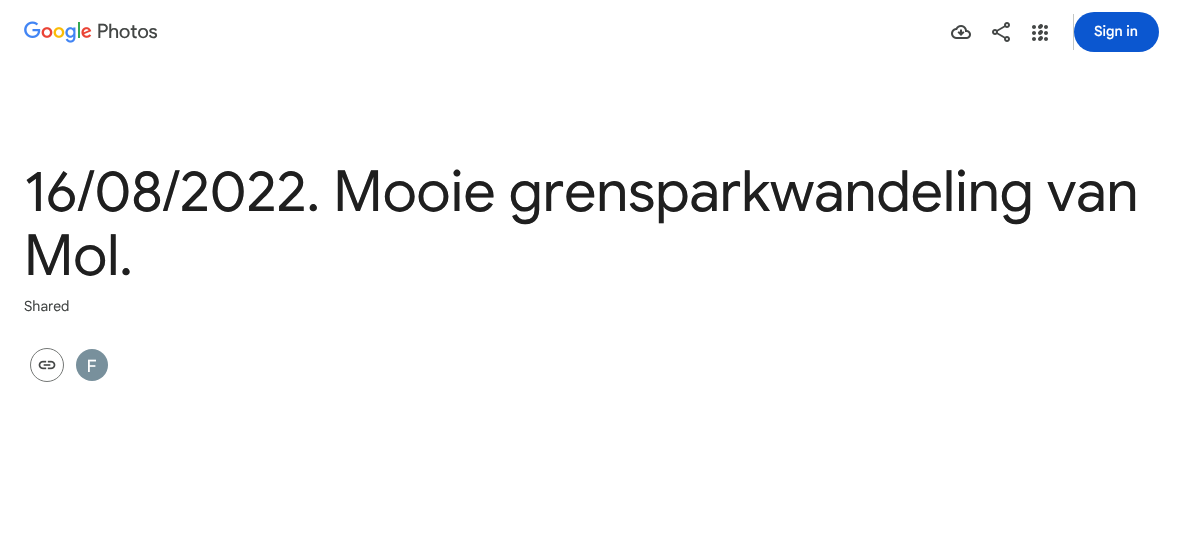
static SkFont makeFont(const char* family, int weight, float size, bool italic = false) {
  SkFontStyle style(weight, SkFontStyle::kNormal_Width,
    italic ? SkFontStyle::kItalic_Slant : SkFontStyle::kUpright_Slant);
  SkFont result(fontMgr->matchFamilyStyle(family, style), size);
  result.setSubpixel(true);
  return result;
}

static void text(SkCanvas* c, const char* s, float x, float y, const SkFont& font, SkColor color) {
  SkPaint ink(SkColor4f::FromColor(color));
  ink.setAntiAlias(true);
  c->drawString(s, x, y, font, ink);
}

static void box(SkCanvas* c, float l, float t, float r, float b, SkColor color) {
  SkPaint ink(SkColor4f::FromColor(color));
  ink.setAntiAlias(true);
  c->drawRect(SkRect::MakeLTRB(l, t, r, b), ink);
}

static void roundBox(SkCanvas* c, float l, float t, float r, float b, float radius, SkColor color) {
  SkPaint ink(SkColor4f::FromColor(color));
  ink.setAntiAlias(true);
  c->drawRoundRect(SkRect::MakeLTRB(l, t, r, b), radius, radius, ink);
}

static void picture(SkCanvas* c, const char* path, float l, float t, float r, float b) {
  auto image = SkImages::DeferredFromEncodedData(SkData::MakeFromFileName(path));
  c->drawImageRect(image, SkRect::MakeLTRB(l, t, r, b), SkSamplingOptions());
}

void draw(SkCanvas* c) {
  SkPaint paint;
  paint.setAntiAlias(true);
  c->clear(0xffffffff);
  picture(c, "img_01.png", 24, 21, 92, 43);
  SkFont face1 = makeFont("Product Sans", 400, 20);
  text(c, "Photos", 97, 38, face1, 0xff444746);
  picture(c, "img_02.png", 951, 25, 971, 39);
  picture(c, "img_03.png", 992, 22, 1010, 42);
  picture(c, "img_04.png", 1039, 24, 1043, 40);
  box(c, 1073, 14, 1074, 50, 0xffc4c7c5);
  SkFont face2 = makeFont("Google Sans", 400, 57);
  text(c, "16/08/2022. Mooie grensparkwandeling van", 24, 211, face2, 0xff1f1f1f);
  text(c, "Mol.", 24, 275, face2, 0xff1f1f1f);
  SkFont face3 = makeFont("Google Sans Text", 400, 14);
  text(c, "Shared", 24, 311, face3, 0xff444746);
  paint.setStyle(SkPaint::kStroke_Style);
  paint.setStrokeWidth(1);
  paint.setColor(0xff747775);
  c->drawCircle(47, 365, 16.5f, paint);
  picture(c, "img_05.png", 38, 360, 56, 370);
  picture(c, "img_06.png", 76, 349, 108, 381);
  picture(c, "img_07.png", 1032, 25, 1048, 41);
  roundBox(c, 1074, 12, 1159, 52, 20, 0xff0b57d0);
  SkFont face4 = makeFont("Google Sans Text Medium", 500, 14);
  text(c, "Sign in", 1094, 36, face4, 0xffffffff);
}
